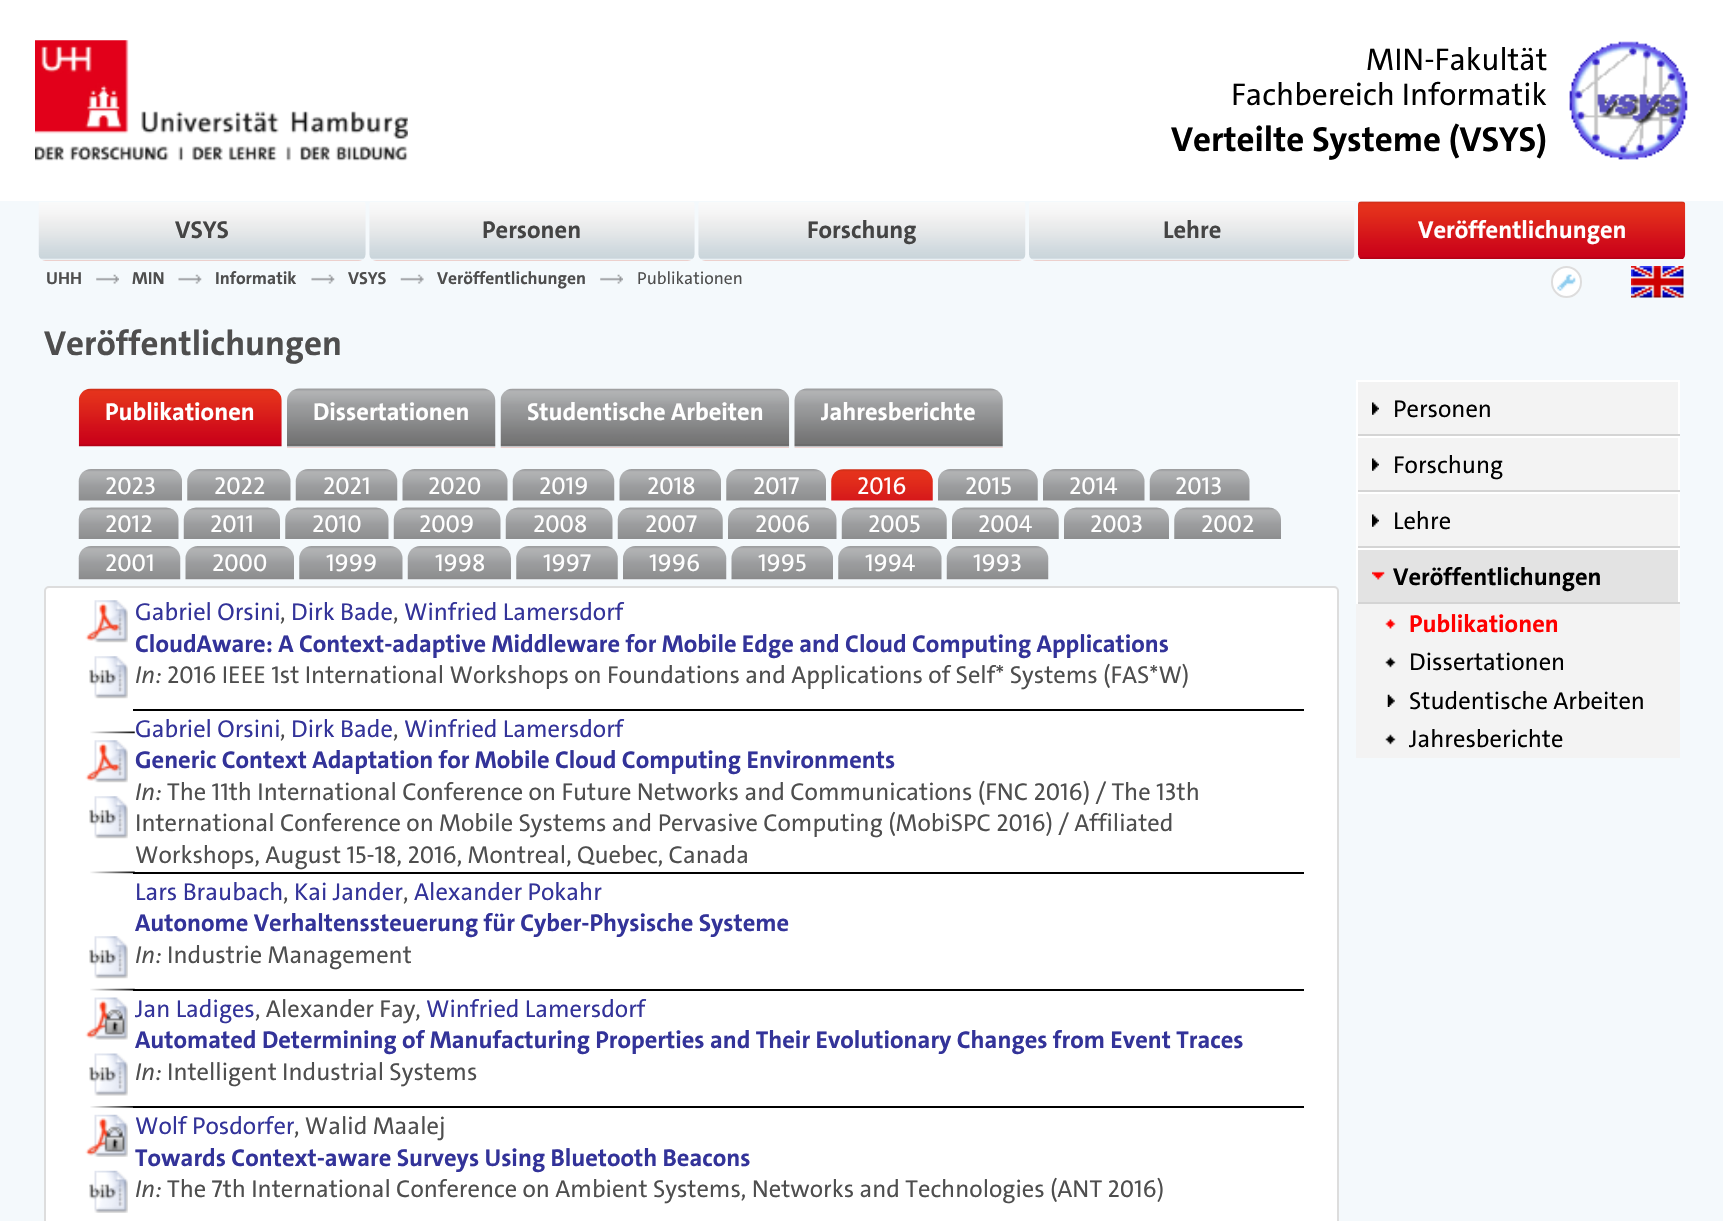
static SkFont makeFont(const char* family, int weight, float size, bool italic = false) {
  SkFontStyle style(weight, SkFontStyle::kNormal_Width,
    italic ? SkFontStyle::kItalic_Slant : SkFontStyle::kUpright_Slant);
  SkFont result(fontMgr->matchFamilyStyle(family, style), size);
  result.setSubpixel(true);
  return result;
}

static void text(SkCanvas* c, const char* s, float x, float y, const SkFont& font, SkColor color) {
  SkPaint ink(SkColor4f::FromColor(color));
  ink.setAntiAlias(true);
  c->drawString(s, x, y, font, ink);
}

static void box(SkCanvas* c, float l, float t, float r, float b, SkColor color) {
  SkPaint ink(SkColor4f::FromColor(color));
  ink.setAntiAlias(true);
  c->drawRect(SkRect::MakeLTRB(l, t, r, b), ink);
}

static void roundBox(SkCanvas* c, float l, float t, float r, float b, float radius, SkColor color) {
  SkPaint ink(SkColor4f::FromColor(color));
  ink.setAntiAlias(true);
  c->drawRoundRect(SkRect::MakeLTRB(l, t, r, b), radius, radius, ink);
}

static void picture(SkCanvas* c, const char* path, float l, float t, float r, float b) {
  auto image = SkImages::DeferredFromEncodedData(SkData::MakeFromFileName(path));
  c->drawImageRect(image, SkRect::MakeLTRB(l, t, r, b), SkSamplingOptions());
}

void draw(SkCanvas* c) {
  SkPaint paint;
  paint.setAntiAlias(true);
  c->clear(0xfff4f9fc);
  box(c, 0, 0, 1723, 201, 0xffffffff);
  picture(c, "img_01.png", 35, 40, 408, 161);
  SkFont face1 = makeFont("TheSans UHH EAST", 400, 31.5f);
  text(c, "MIN-Fakultät", 1366, 70, face1, 0xff000000);
  text(c, "Fachbereich Informatik", 1231, 105, face1, 0xff000000);
  SkFont face2 = makeFont("TheSans UHH EAST", 700, 35);
  text(c, "Verteilte Systeme (VSYS)", 1171, 151, face2, 0xff000000);
  picture(c, "img_02.png", 1569, 41, 1688, 160);
  picture(c, "img_03.png", 38, 202, 366, 261);
  SkFont face3 = makeFont("TheSans UHH EAST", 700, 24.5f);
  text(c, "VSYS", 175, 238, face3, 0xff444444);
  picture(c, "img_04.png", 369, 202, 695, 261);
  text(c, "Personen", 482, 238, face3, 0xff444444);
  picture(c, "img_05.png", 698, 202, 1026, 261);
  text(c, "Forschung", 807, 238, face3, 0xff444444);
  picture(c, "img_06.png", 1029, 202, 1355, 261);
  text(c, "Lehre", 1163, 238, face3, 0xff444444);
  picture(c, "img_07.png", 1358, 201, 1686, 259);
  text(c, "Veröffentlichungen", 1418, 238, face3, 0xffffffff);
  SkFont face4 = makeFont("TheSans UHH EAST", 700, 17.5f);
  text(c, "UHH", 46, 284, face4, 0xff4e4e4e);
  picture(c, "img_08.png", 96, 274, 119, 284);
  text(c, "MIN", 132, 284, face4, 0xff4e4e4e);
  picture(c, "img_09.png", 178, 274, 202, 284);
  text(c, "Informatik", 215, 284, face4, 0xff4e4e4e);
  picture(c, "img_10.png", 311, 274, 335, 284);
  text(c, "VSYS", 348, 284, face4, 0xff4e4e4e);
  picture(c, "img_11.png", 400, 274, 424, 284);
  text(c, "Veröffentlichungen", 437, 284, face4, 0xff4e4e4e);
  picture(c, "img_12.png", 600, 274, 623, 284);
  SkFont face5 = makeFont("TheSans UHH EAST", 400, 17.5f);
  text(c, "Publikationen", 637, 284, face5, 0xff4e4e4e);
  roundBox(c, 1551, 266, 1582, 298, 15.5f, 0xffffffff);
  picture(c, "img_13.png", 1557, 274, 1576, 291);
  paint.setStyle(SkPaint::kStroke_Style);
  paint.setStrokeWidth(2);
  paint.setColor(0xffdddddd);
  c->drawRoundRect(SkRect::MakeLTRB(1552, 267, 1581, 297), 14.5f, 14.5f, paint);
  picture(c, "img_14.png", 1631, 266, 1684, 298);
  text(c, "Veröffentlichungen", 44, 355, face2, 0xff4e4e4e);
  picture(c, "img_15.png", 78, 388, 282, 447);
  text(c, "Publikationen", 105, 420, face3, 0xffffffff);
  picture(c, "img_16.png", 287, 388, 496, 448);
  text(c, "Dissertationen", 313, 420, face3, 0xffffffff);
  picture(c, "img_17.png", 500, 388, 790, 448);
  text(c, "Studentische Arbeiten", 527, 420, face3, 0xffffffff);
  picture(c, "img_18.png", 794, 388, 1003, 448);
  text(c, "Jahresberichte", 821, 420, face3, 0xffffffff);
  picture(c, "img_19.png", 78, 469, 182, 501);
  SkFont face6 = makeFont("TheSans UHH EAST", 400, 24.5f);
  text(c, "2023", 105, 494, face6, 0xffffffff);
  picture(c, "img_20.png", 187, 469, 291, 501);
  text(c, "2022", 214, 494, face6, 0xffffffff);
  picture(c, "img_21.png", 295, 469, 398, 501);
  text(c, "2021", 323, 494, face6, 0xffffffff);
  picture(c, "img_22.png", 402, 469, 508, 501);
  text(c, "2020", 428, 494, face6, 0xffffffff);
  picture(c, "img_21.png", 512, 469, 615, 501);
  text(c, "2019", 539, 494, face6, 0xffffffff);
  picture(c, "img_23.png", 619, 469, 721, 501);
  text(c, "2018", 647, 494, face6, 0xffffffff);
  picture(c, "img_24.png", 726, 469, 826, 501);
  text(c, "2017", 753, 494, face6, 0xffffffff);
  picture(c, "img_25.png", 831, 469, 933, 501);
  text(c, "2016", 857, 494, face6, 0xffffffff);
  picture(c, "img_26.png", 938, 469, 1038, 501);
  text(c, "2015", 965, 494, face6, 0xffffffff);
  picture(c, "img_27.png", 1043, 469, 1145, 501);
  text(c, "2014", 1069, 494, face6, 0xffffffff);
  picture(c, "img_28.png", 1149, 469, 1250, 501);
  text(c, "2013", 1175, 494, face6, 0xffffffff);
  picture(c, "img_29.png", 78, 507, 179, 539);
  text(c, "2012", 105, 532, face6, 0xffffffff);
  picture(c, "img_30.png", 183, 507, 280, 539);
  text(c, "2011", 210, 532, face6, 0xffffffff);
  picture(c, "img_31.png", 285, 507, 389, 539);
  text(c, "2010", 312, 532, face6, 0xffffffff);
  picture(c, "img_32.png", 393, 507, 501, 539);
  text(c, "2009", 419, 532, face6, 0xffffffff);
  picture(c, "img_33.png", 505, 507, 613, 539);
  text(c, "2008", 533, 532, face6, 0xffffffff);
  picture(c, "img_34.png", 617, 507, 723, 539);
  text(c, "2007", 645, 532, face6, 0xffffffff);
  picture(c, "img_35.png", 728, 507, 837, 539);
  text(c, "2006", 755, 532, face6, 0xffffffff);
  picture(c, "img_36.png", 841, 507, 947, 539);
  text(c, "2005", 868, 532, face6, 0xffffffff);
  picture(c, "img_37.png", 952, 507, 1059, 539);
  text(c, "2004", 978, 532, face6, 0xffffffff);
  picture(c, "img_38.png", 1064, 507, 1169, 539);
  text(c, "2003", 1090, 532, face6, 0xffffffff);
  picture(c, "img_39.png", 1174, 507, 1281, 539);
  text(c, "2002", 1201, 532, face6, 0xffffffff);
  picture(c, "img_40.png", 78, 546, 181, 580);
  text(c, "2001", 105, 571, face6, 0xffffffff);
  picture(c, "img_41.png", 185, 546, 294, 580);
  text(c, "2000", 212, 571, face6, 0xffffffff);
  picture(c, "img_42.png", 299, 546, 403, 580);
  text(c, "1999", 326, 571, face6, 0xffffffff);
  picture(c, "img_43.png", 407, 546, 511, 580);
  text(c, "1998", 435, 571, face6, 0xffffffff);
  picture(c, "img_44.png", 516, 546, 618, 580);
  text(c, "1997", 543, 571, face6, 0xffffffff);
  picture(c, "img_45.png", 623, 546, 727, 580);
  text(c, "1996", 649, 571, face6, 0xffffffff);
  picture(c, "img_46.png", 731, 546, 833, 580);
  text(c, "1995", 758, 571, face6, 0xffffffff);
  picture(c, "img_47.png", 838, 546, 942, 580);
  text(c, "1994", 865, 571, face6, 0xffffffff);
  picture(c, "img_40.png", 946, 546, 1049, 580);
  text(c, "1993", 973, 571, face6, 0xffffffff);
  paint.setStyle(SkPaint::kFill_Style);
  paint.setColor(0xffffffff);
  c->drawRoundRect(SkRect::MakeLTRB(45, 587, 1338, 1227), 4, 4, paint);
  paint.setStyle(SkPaint::kStroke_Style);
  paint.setColor(0xffdddddd);
  c->drawRoundRect(SkRect::MakeLTRB(45, 587, 1338, 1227), 4, 4, paint);
  picture(c, "img_48.png", 85, 600, 128, 643);
  picture(c, "img_49.png", 89, 656, 128, 699);
  text(c, "Gabriel Orsini", 135, 620, face6, 0xff333399);
  text(c, ",", 280, 620, face6, 0xff4e4e4e);
  text(c, "Dirk Bade", 291, 620, face6, 0xff333399);
  text(c, ",", 393, 620, face6, 0xff4e4e4e);
  text(c, "Winfried Lamersdorf", 404, 620, face6, 0xff333399);
  text(c, "CloudAware: A Context-adaptive Middleware for Mobile Edge and Cloud Computing Applications", 135, 652, face3, 0xff333399);
  SkFont face7 = makeFont("TheSans UHH EAST", 500, 24.5f, true);
  text(c, "In:", 135, 683, face7, 0xff4e4e4e);
  text(c, "2016 IEEE 1st International Workshops on Foundations and Applications of Self* Systems (FAS*W)", 167, 683, face6, 0xff4e4e4e);
  picture(c, "img_50.png", 90, 731, 135, 734);
  picture(c, "img_48.png", 85, 740, 128, 783);
  picture(c, "img_49.png", 89, 796, 128, 839);
  box(c, 133, 709, 1304, 711, 0xff000000);
  text(c, "Gabriel Orsini", 135, 737, face6, 0xff333399);
  text(c, ",", 280, 737, face6, 0xff4e4e4e);
  text(c, "Dirk Bade", 291, 737, face6, 0xff333399);
  text(c, ",", 393, 737, face6, 0xff4e4e4e);
  text(c, "Winfried Lamersdorf", 404, 737, face6, 0xff333399);
  text(c, "Generic Context Adaptation for Mobile Cloud Computing Environments", 135, 768, face3, 0xff333399);
  text(c, "In:", 135, 800, face7, 0xff4e4e4e);
  text(c, "The 11th International Conference on Future Networks and Communications (FNC 2016) / The 13th", 167, 800, face6, 0xff4e4e4e);
  text(c, "International Conference on Mobile Systems and Pervasive Computing (MobiSPC 2016) / Affiliated", 135, 831, face6, 0xff4e4e4e);
  text(c, "Workshops, August 15-18, 2016, Montreal, Quebec, Canada", 135, 863, face6, 0xff4e4e4e);
  box(c, 133, 872, 1304, 874, 0xff000000);
  picture(c, "img_51.png", 90, 871, 135, 874);
  picture(c, "img_49.png", 89, 936, 128, 979);
  text(c, "Lars Braubach", 135, 900, face6, 0xff333399);
  text(c, ",", 283, 900, face6, 0xff4e4e4e);
  text(c, "Kai Jander", 294, 900, face6, 0xff333399);
  text(c, ",", 403, 900, face6, 0xff4e4e4e);
  text(c, "Alexander Pokahr", 414, 900, face6, 0xff333399);
  text(c, "Autonome Verhaltenssteuerung für Cyber-Physische Systeme", 135, 931, face3, 0xff333399);
  text(c, "In:", 135, 963, face7, 0xff4e4e4e);
  text(c, "Industrie Management", 167, 963, face6, 0xff4e4e4e);
  box(c, 133, 989, 1304, 991, 0xff000000);
  picture(c, "img_52.png", 90, 988, 135, 991);
  picture(c, "img_53.png", 85, 997, 128, 1040);
  picture(c, "img_54.png", 89, 1053, 128, 1096);
  text(c, "Jan Ladiges", 135, 1017, face6, 0xff333399);
  text(c, ", Alexander Fay,", 255, 1017, face6, 0xff4e4e4e);
  text(c, "Winfried Lamersdorf", 426, 1017, face6, 0xff333399);
  text(c, "Automated Determining of Manufacturing Properties and Their Evolutionary Changes from Event Traces", 135, 1048, face3, 0xff333399);
  text(c, "In:", 135, 1080, face7, 0xff4e4e4e);
  text(c, "Intelligent Industrial Systems", 167, 1080, face6, 0xff4e4e4e);
  picture(c, "img_55.png", 90, 1106, 133, 1108);
  picture(c, "img_56.png", 85, 1114, 128, 1157);
  picture(c, "img_57.png", 89, 1170, 128, 1213);
  box(c, 133, 1106, 1304, 1108, 0xff000000);
  text(c, "Wolf Posdorfer", 135, 1134, face6, 0xff333399);
  text(c, ", Walid Maalej", 294, 1134, face6, 0xff4e4e4e);
  text(c, "Towards Context-aware Surveys Using Bluetooth Beacons", 135, 1166, face3, 0xff333399);
  text(c, "In:", 135, 1197, face7, 0xff4e4e4e);
  text(c, "The 7th International Conference on Ambient Systems, Networks and Technologies (ANT 2016)", 167, 1197, face6, 0xff4e4e4e);
  box(c, 1358, 382, 1678, 434, 0xfff3f3f3);
  picture(c, "img_58.png", 1372, 402, 1379, 415);
  box(c, 1356, 380, 1680, 382, 0xffffffff);
  box(c, 1678, 380, 1680, 436, 0xffffffff);
  box(c, 1356, 434, 1680, 436, 0xffd4d4d4);
  box(c, 1356, 380, 1358, 436, 0xffffffff);
  text(c, "Personen", 1393, 417, face6, 0xff000000);
  box(c, 1358, 438, 1678, 490, 0xfff3f3f3);
  picture(c, "img_58.png", 1372, 458, 1379, 471);
  box(c, 1356, 436, 1680, 438, 0xffffffff);
  box(c, 1678, 436, 1680, 492, 0xffffffff);
  box(c, 1356, 490, 1680, 492, 0xffd4d4d4);
  box(c, 1356, 436, 1358, 492, 0xffffffff);
  text(c, "Forschung", 1393, 473, face6, 0xff000000);
  box(c, 1358, 494, 1678, 546, 0xfff3f3f3);
  picture(c, "img_58.png", 1372, 514, 1379, 527);
  box(c, 1356, 492, 1680, 494, 0xffffffff);
  box(c, 1678, 492, 1680, 548, 0xffffffff);
  box(c, 1356, 546, 1680, 548, 0xffd4d4d4);
  box(c, 1356, 492, 1358, 548, 0xffffffff);
  text(c, "Lehre", 1393, 529, face6, 0xff000000);
  box(c, 1358, 550, 1678, 602, 0xffe3e3e3);
  picture(c, "img_59.png", 1372, 571, 1385, 580);
  box(c, 1356, 548, 1680, 550, 0xffffffff);
  box(c, 1678, 548, 1680, 604, 0xffffffff);
  box(c, 1356, 602, 1680, 604, 0xffd4d4d4);
  box(c, 1356, 548, 1358, 604, 0xffffffff);
  text(c, "Veröffentlichungen", 1393, 585, face3, 0xff000000);
  box(c, 1356, 604, 1680, 758, 0xfff3f3f3);
  picture(c, "img_60.png", 1385, 619, 1396, 629);
  text(c, "Publikationen", 1409, 632, face3, 0xffff0000);
  picture(c, "img_61.png", 1385, 657, 1396, 668);
  text(c, "Dissertationen", 1409, 670, face6, 0xff000000);
  picture(c, "img_62.png", 1387, 694, 1395, 707);
  text(c, "Studentische Arbeiten", 1409, 709, face6, 0xff000000);
  picture(c, "img_61.png", 1385, 734, 1396, 745);
  text(c, "Jahresberichte", 1409, 747, face6, 0xff000000);
}
